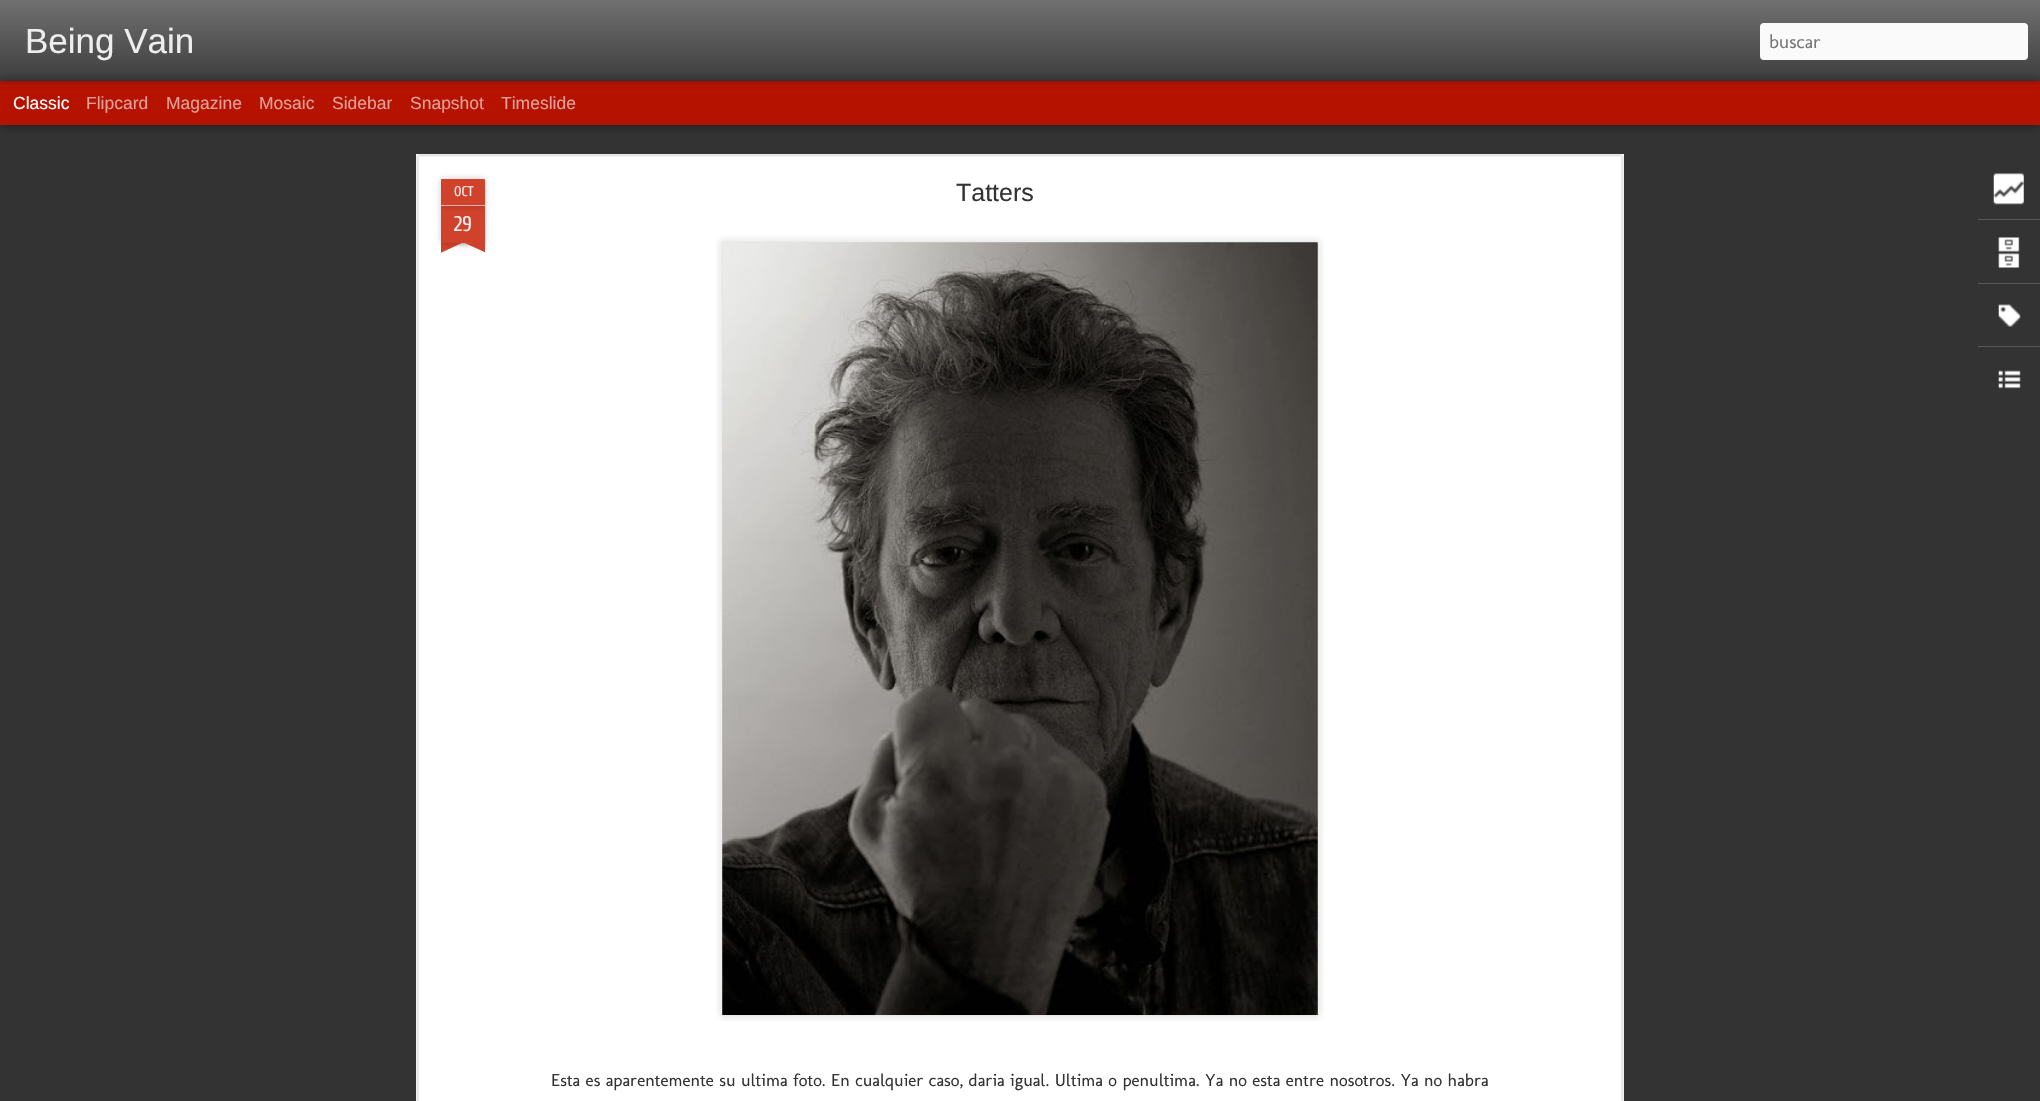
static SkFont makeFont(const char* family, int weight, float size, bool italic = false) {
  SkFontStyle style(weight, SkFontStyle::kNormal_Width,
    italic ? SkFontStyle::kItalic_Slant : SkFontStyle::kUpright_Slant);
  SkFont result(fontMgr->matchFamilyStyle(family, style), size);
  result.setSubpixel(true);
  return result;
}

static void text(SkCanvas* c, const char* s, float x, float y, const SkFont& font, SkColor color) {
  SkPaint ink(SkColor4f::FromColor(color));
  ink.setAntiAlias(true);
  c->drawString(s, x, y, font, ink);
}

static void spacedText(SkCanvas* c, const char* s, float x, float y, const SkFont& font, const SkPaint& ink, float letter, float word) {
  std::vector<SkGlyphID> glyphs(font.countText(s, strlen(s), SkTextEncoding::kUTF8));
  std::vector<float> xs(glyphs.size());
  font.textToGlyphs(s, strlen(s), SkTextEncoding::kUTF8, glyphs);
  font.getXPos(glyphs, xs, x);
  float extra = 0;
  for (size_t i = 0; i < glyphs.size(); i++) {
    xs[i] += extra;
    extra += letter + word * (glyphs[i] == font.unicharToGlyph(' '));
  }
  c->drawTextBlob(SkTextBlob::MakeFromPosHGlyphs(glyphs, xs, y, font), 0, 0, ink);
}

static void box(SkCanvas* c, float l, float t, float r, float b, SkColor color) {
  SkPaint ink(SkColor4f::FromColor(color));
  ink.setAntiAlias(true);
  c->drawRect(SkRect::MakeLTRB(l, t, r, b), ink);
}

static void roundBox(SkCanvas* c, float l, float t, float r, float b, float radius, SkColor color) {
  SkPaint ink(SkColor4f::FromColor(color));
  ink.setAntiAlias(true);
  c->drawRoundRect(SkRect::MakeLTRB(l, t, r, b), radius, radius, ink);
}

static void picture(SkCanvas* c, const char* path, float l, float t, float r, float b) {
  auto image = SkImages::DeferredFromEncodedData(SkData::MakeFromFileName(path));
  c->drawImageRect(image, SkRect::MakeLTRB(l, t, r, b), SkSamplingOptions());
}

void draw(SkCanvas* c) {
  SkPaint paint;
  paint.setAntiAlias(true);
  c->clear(0xff333333);
  paint.setColor(0x80000000);
  paint.setMaskFilter(SkMaskFilter::MakeBlur(kNormal_SkBlurStyle, 5));
  c->drawRect(SkRect::MakeLTRB(0, 81, 2040, 125), paint);
  paint.setMaskFilter(nullptr);
  box(c, 0, 81, 2040, 125, 0xffb51200);
  c->save();
  c->clipRect(SkRect::MakeLTRB(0, 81, 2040, 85));
  paint.setColor(0x4d000000);
  paint.setMaskFilter(SkMaskFilter::MakeBlur(kNormal_SkBlurStyle, 3));
  c->drawRect(SkRect::MakeLTRB(0, 0, 2040, 81), paint);
  paint.setMaskFilter(nullptr);
  c->restore();
  {
    const SkColor colors[] = {0x4dffffff, 0x0dffffff};
    const float stops[] = {0, 1};
    const SkPoint ends[] = {{0, 0}, {0, 81}};
    paint.setShader(SkGradientShader::MakeLinear(ends, colors, stops, 2, SkTileMode::kClamp));
    paint.setAlpha(255);
  }
  c->drawRect(SkRect::MakeLTRB(0, 0, 2040, 81), paint);
  SkFont face1 = makeFont("Liberation Sans", 400, 35);
  text(c, "Being Vain", 25, 53, face1, 0xffeeeeee);
  roundBox(c, 1760, 23, 2028, 60, 4, 0xfffafafa);
  SkFont face2 = makeFont("Molengo", 400, 19);
  text(c, "buscar", 1769, 48, face2, 0xff757575);
  SkFont face3 = makeFont("Liberation Sans", 400, 17.5f);
  text(c, "Classic", 13, 109, face3, 0xffffffff);
  text(c, "Flipcard", 86, 109, face3, 0xffe1a099);
  text(c, "Magazine", 166, 109, face3, 0xffe1a099);
  text(c, "Mosaic", 259, 109, face3, 0xffe1a099);
  text(c, "Sidebar", 332, 109, face3, 0xffe1a099);
  text(c, "Snapshot", 410, 109, face3, 0xffe1a099);
  text(c, "Timeslide", 501, 109, face3, 0xffe1a099);
  box(c, 416, 154, 1624, 1101, 0xffffffff);
  picture(c, "img_01.png", 416, 154, 1624, 1101);
  paint.setShader(nullptr);
  paint.setColor(0x33000000);
  paint.setMaskFilter(SkMaskFilter::MakeBlur(kNormal_SkBlurStyle, 3));
  c->drawRect(SkRect::MakeLTRB(441, 206, 485, 243), paint);
  paint.setMaskFilter(nullptr);
  box(c, 441, 206, 485, 243, 0xffd0422c);
  paint.setMaskFilter(SkMaskFilter::MakeBlur(kNormal_SkBlurStyle, 3));
  c->drawRoundRect(SkRect::MakeLTRB(441, 179, 485, 206), 1, 1, paint);
  paint.setMaskFilter(nullptr);
  paint.setColor(0xffd0422c);
  c->drawPath(SkPathBuilder().moveTo(442, 179).lineTo(484, 179).cubicTo(484.5f, 179, 485, 179.5f, 485, 180).lineTo(485, 206).lineTo(441, 206).lineTo(441, 180).cubicTo(441, 179.5f, 441.5f, 179, 442, 179).close().detach(), paint);
  box(c, 441, 205, 485, 206, 0xffecb3ab);
  SkFont face4 = makeFont("Cuprum", 400, 14);
  text(c, "OCT", 454, 196, face4, 0xffeeeeee);
  SkFont face5 = makeFont("Cuprum", 400, 21);
  text(c, "29", 454, 231, face5, 0xffeeeeee);
  c->save();
  c->clipRect(SkRect::MakeLTRB(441, 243, 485, 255));
  paint.setColor(0x33000000);
  paint.setMaskFilter(SkMaskFilter::MakeBlur(kNormal_SkBlurStyle, 3));
  c->drawRect(SkRect::MakeLTRB(430, 230, 493, 243), paint);
  paint.setMaskFilter(nullptr);
  c->restore();
  c->save();
  c->clipRect(SkRect::MakeLTRB(441, 243, 485, 255));
  paint.setColor(0xffd0422c);
  c->drawPath(SkPathBuilder().moveTo(430, 244).lineTo(487, 217).lineTo(492, 229).lineTo(436, 255).close().detach(), paint);
  c->restore();
  c->save();
  c->clipRect(SkRect::MakeLTRB(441, 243, 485, 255));
  paint.setColor(0x33000000);
  paint.setMaskFilter(SkMaskFilter::MakeBlur(kNormal_SkBlurStyle, 3));
  c->drawRect(SkRect::MakeLTRB(434, 230, 496, 243), paint);
  paint.setMaskFilter(nullptr);
  c->restore();
  c->save();
  c->clipRect(SkRect::MakeLTRB(441, 243, 485, 255));
  paint.setColor(0xffd0422c);
  c->drawPath(SkPathBuilder().moveTo(439, 217).lineTo(496, 244).lineTo(491, 255).lineTo(434, 229).close().detach(), paint);
  c->restore();
  SkFont face6 = makeFont("Liberation Sans", 400, 25);
  text(c, "Tatters", 956, 201, face6, 0xff333333);
  picture(c, "img_02.png", 716, 236, 1324, 1021);
  picture(c, "img_03.png", 722, 242, 1318, 1015);
  SkFont face7 = makeFont("Molengo", 400, 17.5f);
  paint.setColor(0xff333333);
  spacedText(c, "Esta es aparentemente su ultima foto. En cualquier caso, daria igual. Ultima o penultima. Ya no esta entre nosotros. Ya no habra", 551, 1086, face7, paint, 0, 0.4f);
  picture(c, "img_04.png", 1993, 173, 2024, 205);
  box(c, 1978, 219, 2040, 220, 0xff585858);
  picture(c, "img_05.png", 1998, 237, 2020, 268);
  box(c, 1978, 283, 2040, 284, 0xff585858);
  picture(c, "img_06.png", 1998, 304, 2021, 327);
  box(c, 1978, 346, 2040, 347, 0xff585858);
  picture(c, "img_07.png", 1998, 370, 2021, 389);
}
